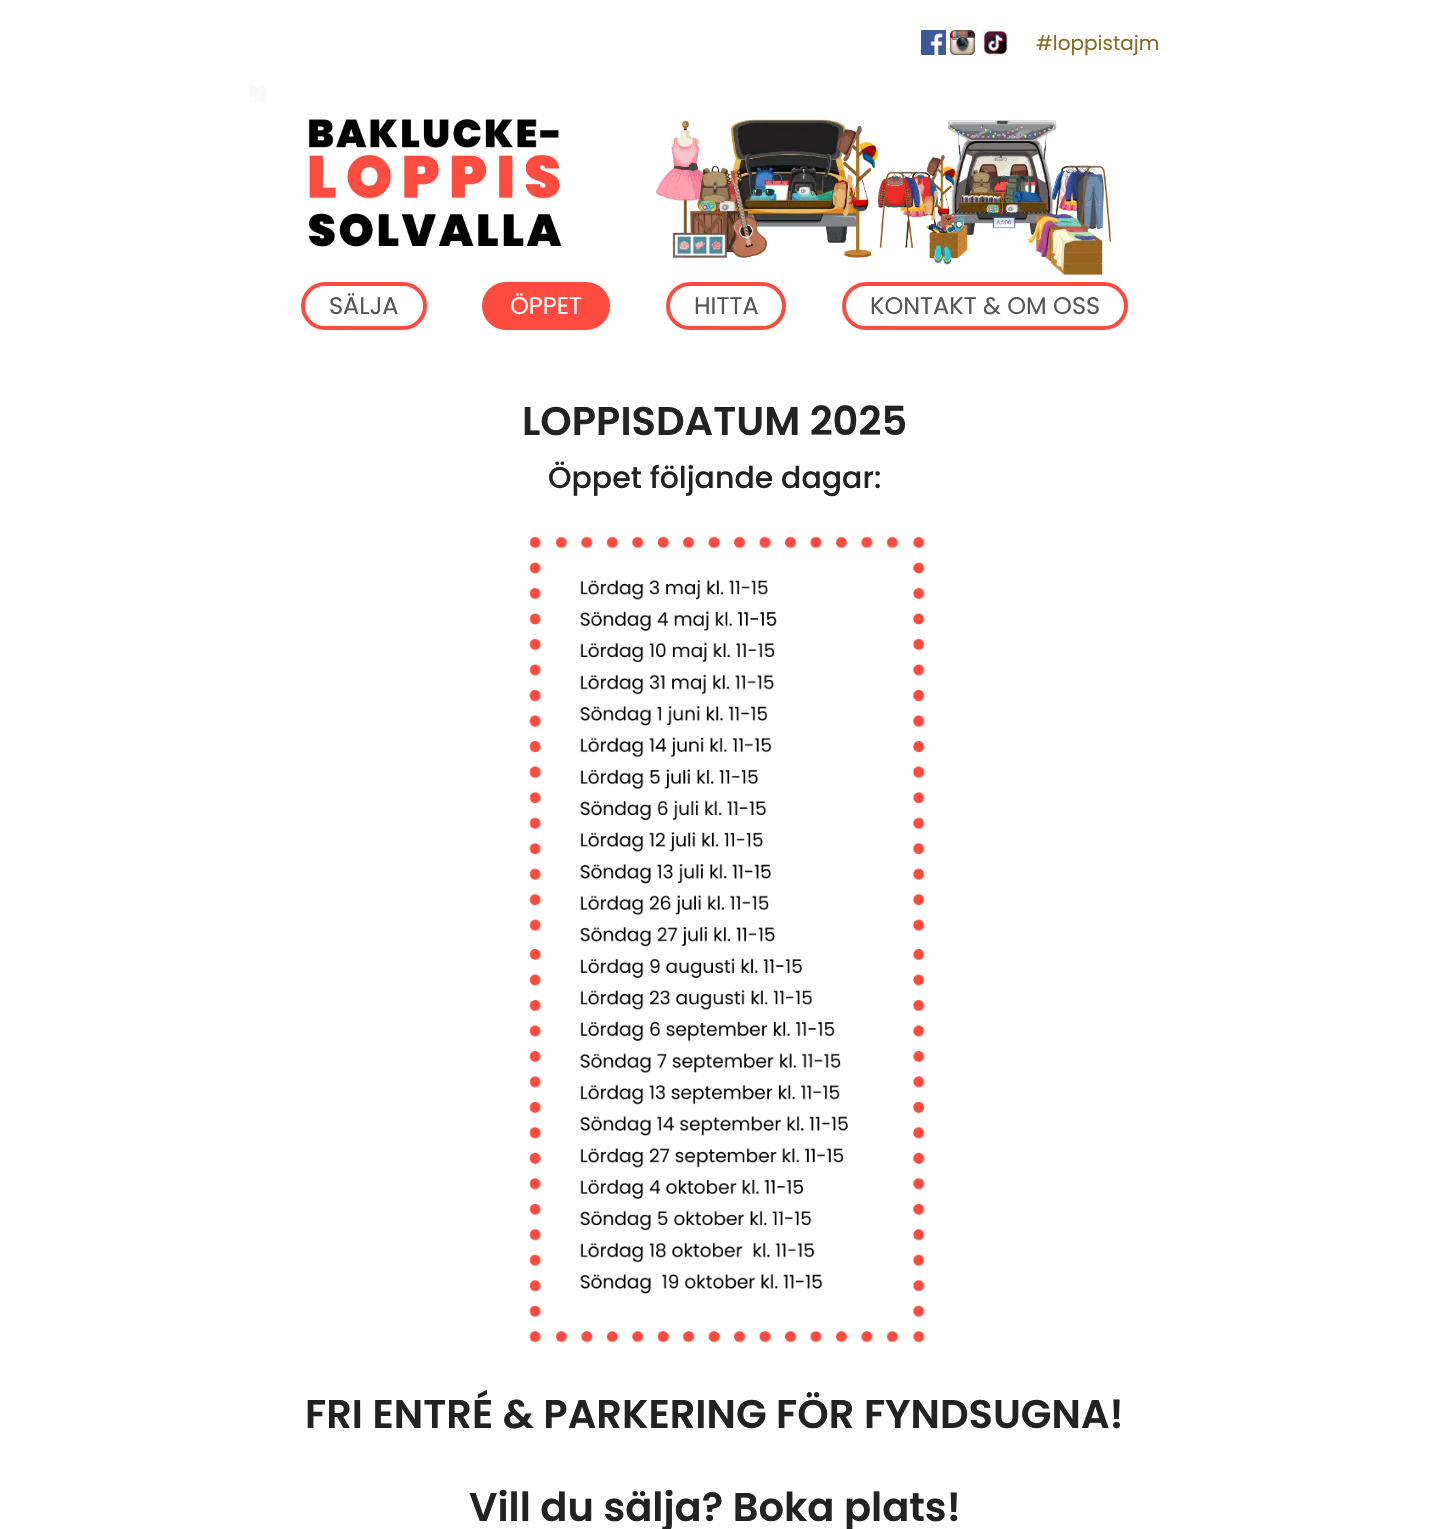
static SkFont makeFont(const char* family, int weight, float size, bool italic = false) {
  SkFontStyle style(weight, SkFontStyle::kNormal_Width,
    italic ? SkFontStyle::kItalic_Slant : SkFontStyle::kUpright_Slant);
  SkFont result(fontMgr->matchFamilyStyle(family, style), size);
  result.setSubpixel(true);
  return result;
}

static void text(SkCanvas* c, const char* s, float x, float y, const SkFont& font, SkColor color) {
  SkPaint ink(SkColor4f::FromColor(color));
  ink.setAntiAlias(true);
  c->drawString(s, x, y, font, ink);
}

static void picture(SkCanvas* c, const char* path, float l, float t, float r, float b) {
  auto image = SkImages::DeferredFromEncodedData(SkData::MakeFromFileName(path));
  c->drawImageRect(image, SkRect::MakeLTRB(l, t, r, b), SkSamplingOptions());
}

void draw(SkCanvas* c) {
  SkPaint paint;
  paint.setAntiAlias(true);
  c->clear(0xffffffff);
  picture(c, "img_01.png", 921, 30, 946, 55);
  picture(c, "img_02.png", 950, 30, 975, 55);
  picture(c, "img_03.png", 983, 30, 1008, 56);
  SkFont face1 = makeFont("Poppins", 400, 20);
  text(c, "#loppistajm", 1036, 50, face1, 0xff856b25);
  picture(c, "img_04.png", 250, 86, 1111, 275);
  paint.setStyle(SkPaint::kStroke_Style);
  paint.setStrokeWidth(4);
  paint.setColor(0xfffd4c3f);
  c->drawRoundRect(SkRect::MakeLTRB(303, 284, 425, 328), 22, 22, paint);
  SkFont face2 = makeFont("Poppins", 400, 24);
  text(c, "SÄLJA", 329, 314, face2, 0xff555555);
  paint.setStyle(SkPaint::kFill_Style);
  c->drawRoundRect(SkRect::MakeLTRB(484, 284, 608, 328), 22, 22, paint);
  paint.setStyle(SkPaint::kStroke_Style);
  c->drawRoundRect(SkRect::MakeLTRB(484, 284, 608, 328), 22, 22, paint);
  text(c, "ÖPPET", 510, 314, face2, 0xffffffff);
  c->drawRoundRect(SkRect::MakeLTRB(668, 284, 784, 328), 22, 22, paint);
  text(c, "HITTA", 694, 314, face2, 0xff555555);
  c->drawRoundRect(SkRect::MakeLTRB(844, 284, 1126, 328), 22, 22, paint);
  text(c, "KONTAKT & OM OSS", 870, 314, face2, 0xff555555);
  SkFont face3 = makeFont("Poppins", 600, 40);
  text(c, "LOPPISDATUM 2025", 522, 435, face3, 0xff222222);
  SkFont face4 = makeFont("Poppins", 500, 30);
  text(c, "Öppet följande dagar:", 548, 488, face4, 0xff222222);
  picture(c, "img_05.png", 529, 536, 925, 1343);
  text(c, "FRI ENTRÉ & PARKERING FÖR FYNDSUGNA!", 305, 1428, face3, 0xff222222);
  text(c, "Vill du sälja? Boka plats!", 469, 1521, face3, 0xff222222);
}
